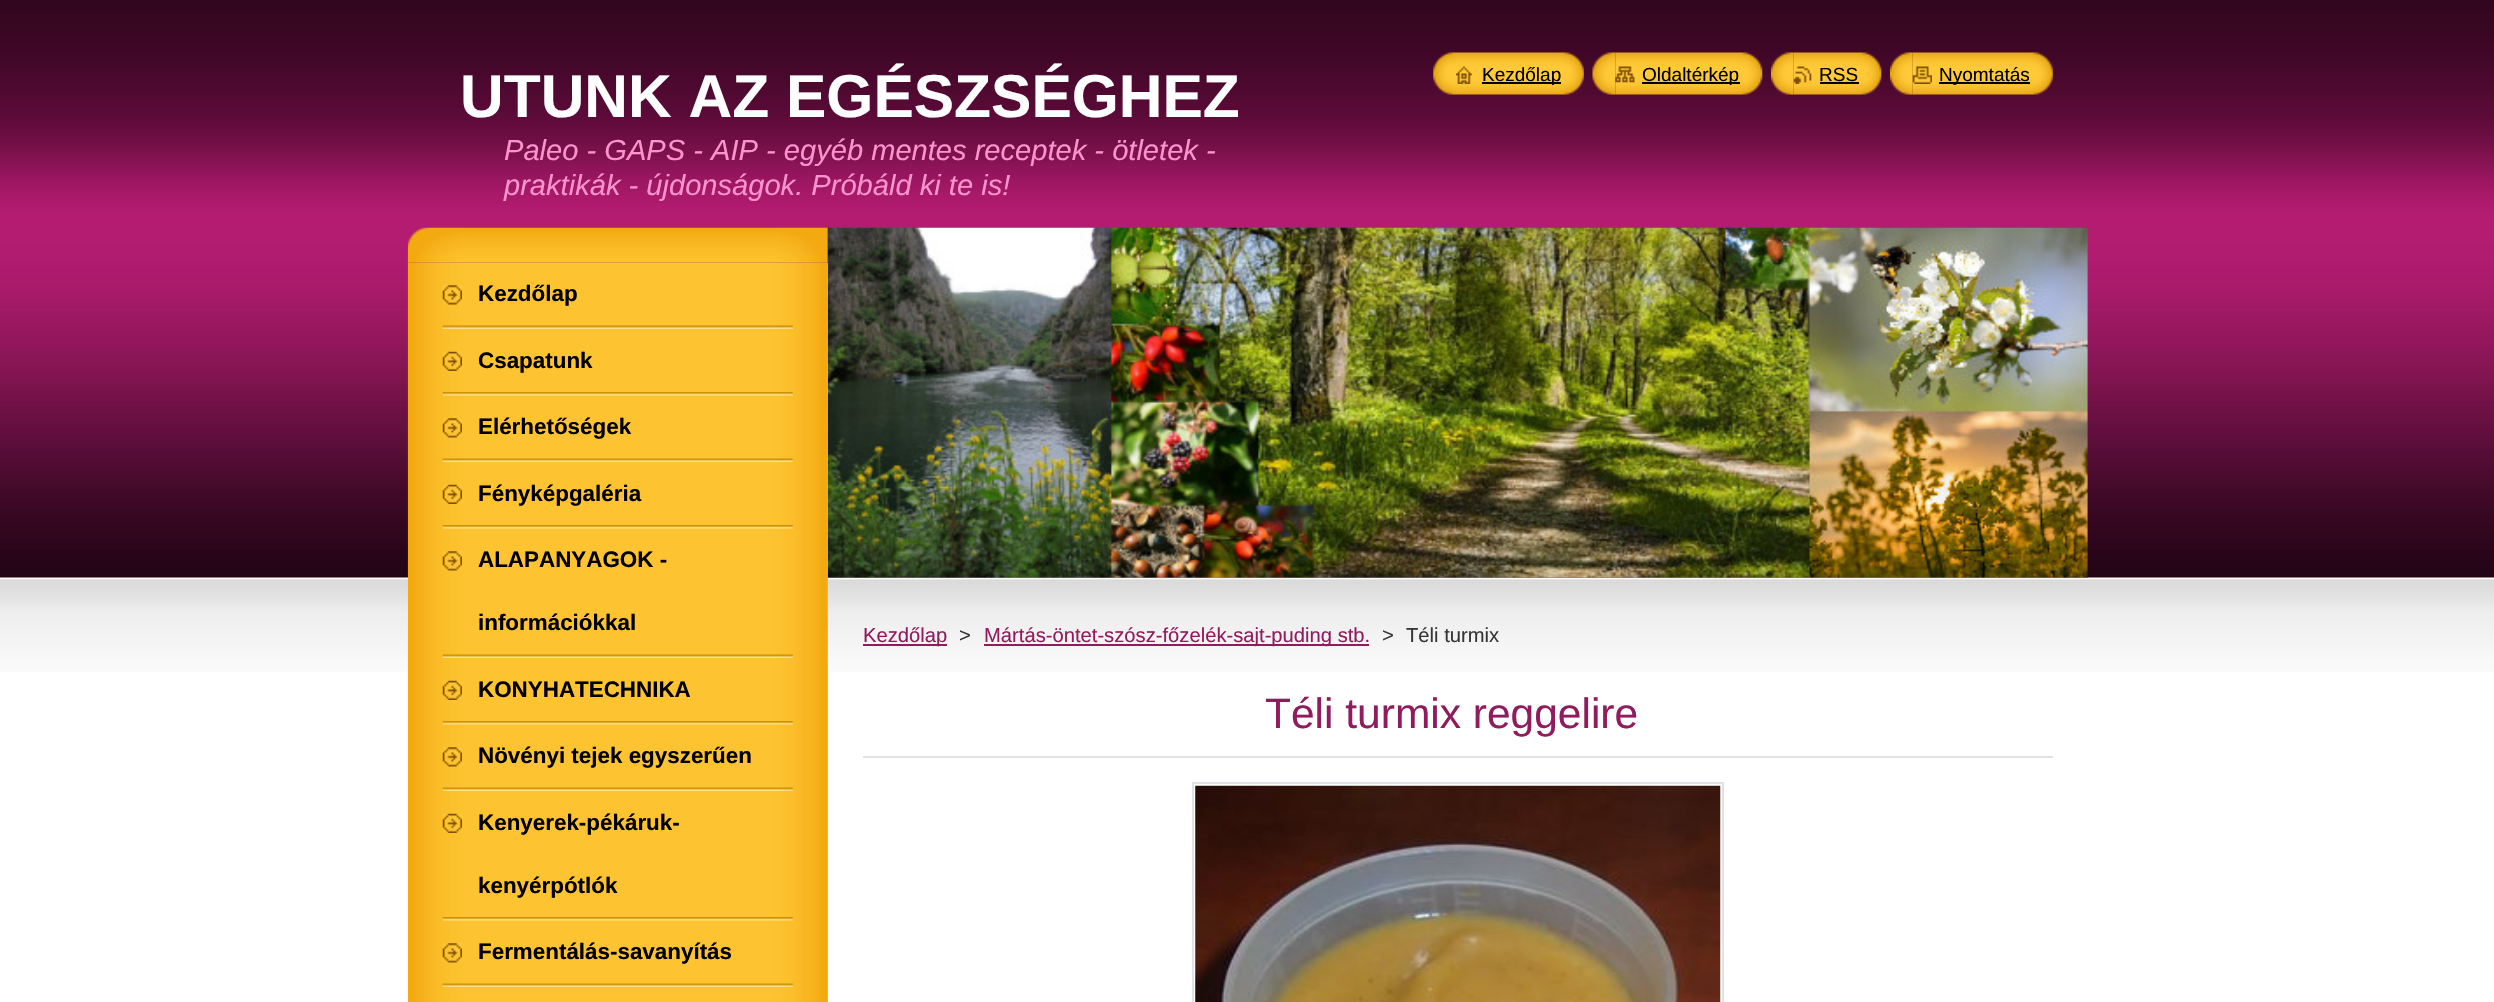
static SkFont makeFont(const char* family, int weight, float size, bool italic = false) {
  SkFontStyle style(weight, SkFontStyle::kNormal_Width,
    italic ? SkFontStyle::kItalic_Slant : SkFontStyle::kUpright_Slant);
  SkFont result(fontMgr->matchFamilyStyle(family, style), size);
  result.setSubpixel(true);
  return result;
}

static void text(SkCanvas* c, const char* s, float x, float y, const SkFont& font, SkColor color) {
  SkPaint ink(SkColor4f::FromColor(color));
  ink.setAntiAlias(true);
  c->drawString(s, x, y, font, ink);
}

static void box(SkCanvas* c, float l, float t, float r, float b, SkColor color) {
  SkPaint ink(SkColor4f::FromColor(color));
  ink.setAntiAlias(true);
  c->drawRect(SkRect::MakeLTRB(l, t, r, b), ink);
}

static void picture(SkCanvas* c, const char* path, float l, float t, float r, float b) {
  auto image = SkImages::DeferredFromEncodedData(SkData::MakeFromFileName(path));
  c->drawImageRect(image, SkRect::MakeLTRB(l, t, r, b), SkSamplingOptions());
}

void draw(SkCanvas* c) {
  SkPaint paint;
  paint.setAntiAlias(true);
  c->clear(0xffffffff);
  picture(c, "img_01.png", 0, 0, 2494, 672);
  SkFont face1 = makeFont("Liberation Sans", 700, 60.5f);
  text(c, "UTUNK AZ EGÉSZSÉGHEZ", 460, 117, face1, 0xffffffff);
  SkFont face2 = makeFont("Liberation Sans", 400, 29.1f, true);
  text(c, "Paleo - GAPS - AIP - egyéb mentes receptek - ötletek -", 504, 160, face2, 0xfffc93ce);
  text(c, "praktikák - újdonságok. Próbáld ki te is!", 504, 195, face2, 0xfffc93ce);
  picture(c, "img_02.png", 1433, 52, 1456, 95);
  picture(c, "img_03.png", 1456, 52, 1584, 95);
  picture(c, "img_04.png", 1456, 66, 1472, 84);
  box(c, 1482, 82, 1561, 84, 0xff000000);
  SkFont face3 = makeFont("Liberation Sans", 400, 19);
  text(c, "Kezdőlap", 1482, 81, face3, 0xff000000);
  picture(c, "img_05.png", 1592, 52, 1616, 95);
  picture(c, "img_06.png", 1615, 52, 1763, 95);
  picture(c, "img_07.png", 1615, 66, 1635, 83);
  box(c, 1642, 82, 1740, 84, 0xff000000);
  text(c, "Oldaltérkép", 1642, 81, face3, 0xff000000);
  picture(c, "img_08.png", 1771, 52, 1794, 95);
  picture(c, "img_09.png", 1793, 52, 1882, 95);
  picture(c, "img_10.png", 1793, 66, 1812, 84);
  text(c, "RSS", 1819, 81, face3, 0xff000000);
  box(c, 1820, 82, 1859, 84, 0xff000000);
  picture(c, "img_11.png", 1890, 52, 1913, 95);
  picture(c, "img_12.png", 1912, 52, 2053, 95);
  picture(c, "img_13.png", 1912, 66, 1932, 84);
  box(c, 1939, 82, 2030, 84, 0xff000000);
  text(c, "Nyomtatás", 1939, 81, face3, 0xff000000);
  picture(c, "img_14.png", 407, 227, 828, 263);
  box(c, 827, 263, 828, 1002, 0xffffc937);
  picture(c, "img_15.png", 407, 262, 828, 1002);
  picture(c, "img_16.png", 442, 325, 793, 329);
  picture(c, "img_17.png", 442, 285, 462, 305);
  SkFont face4 = makeFont("Liberation Sans", 700, 22.4f);
  text(c, "Kezdőlap", 478, 301, face4, 0xff000000);
  picture(c, "img_18.png", 442, 392, 793, 396);
  picture(c, "img_19.png", 442, 351, 462, 371);
  text(c, "Csapatunk", 478, 368, face4, 0xff000000);
  picture(c, "img_16.png", 442, 458, 793, 462);
  picture(c, "img_17.png", 442, 418, 462, 438);
  text(c, "Elérhetőségek", 478, 434, face4, 0xff000000);
  picture(c, "img_18.png", 442, 525, 793, 529);
  picture(c, "img_19.png", 442, 484, 462, 504);
  text(c, "Fényképgaléria", 478, 501, face4, 0xff000000);
  picture(c, "img_16.png", 442, 654, 793, 658);
  picture(c, "img_17.png", 442, 551, 462, 571);
  text(c, "ALAPANYAGOK -", 478, 567, face4, 0xff000000);
  text(c, "információkkal", 478, 630, face4, 0xff000000);
  picture(c, "img_18.png", 442, 721, 793, 725);
  picture(c, "img_19.png", 442, 680, 462, 700);
  text(c, "KONYHATECHNIKA", 478, 697, face4, 0xff000000);
  picture(c, "img_16.png", 442, 787, 793, 791);
  picture(c, "img_17.png", 442, 747, 462, 767);
  text(c, "Növényi tejek egyszerűen", 478, 763, face4, 0xff000000);
  picture(c, "img_18.png", 442, 917, 793, 921);
  picture(c, "img_19.png", 442, 813, 462, 833);
  text(c, "Kenyerek-pékáruk-", 478, 830, face4, 0xff000000);
  text(c, "kenyérpótlók", 478, 893, face4, 0xff000000);
  picture(c, "img_16.png", 442, 983, 793, 987);
  picture(c, "img_17.png", 442, 943, 462, 963);
  text(c, "Fermentálás-savanyítás", 478, 959, face4, 0xff000000);
  picture(c, "img_20.png", 827, 227, 2088, 578);
  box(c, 863, 644, 947, 646, 0xff901c5d);
  SkFont face5 = makeFont("Liberation Sans", 400, 20.2f);
  text(c, "Kezdőlap", 863, 642, face5, 0xff901c5d);
  text(c, ">", 959, 642, face5, 0xff363636);
  box(c, 984, 644, 1369, 646, 0xff901c5d);
  text(c, "Mártás-öntet-szósz-főzelék-sajt-puding stb.", 984, 642, face5, 0xff901c5d);
  text(c, ">", 1382, 642, face5, 0xff363636);
  text(c, "Téli turmix", 1406, 642, face5, 0xff363636);
  box(c, 863, 756, 2053, 758, 0xffe1e1e1);
  SkFont face6 = makeFont("Liberation Sans", 400, 42.5f);
  text(c, "Téli turmix reggelire", 1265, 728, face6, 0xff901c5d);
  paint.setStyle(SkPaint::kStroke_Style);
  paint.setStrokeWidth(2);
  paint.setColor(0xffe0e2e6);
  c->drawRect(SkRect::MakeLTRB(1193, 783, 1723, 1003), paint);
  picture(c, "img_21.png", 1195, 785, 1721, 1002);
}
